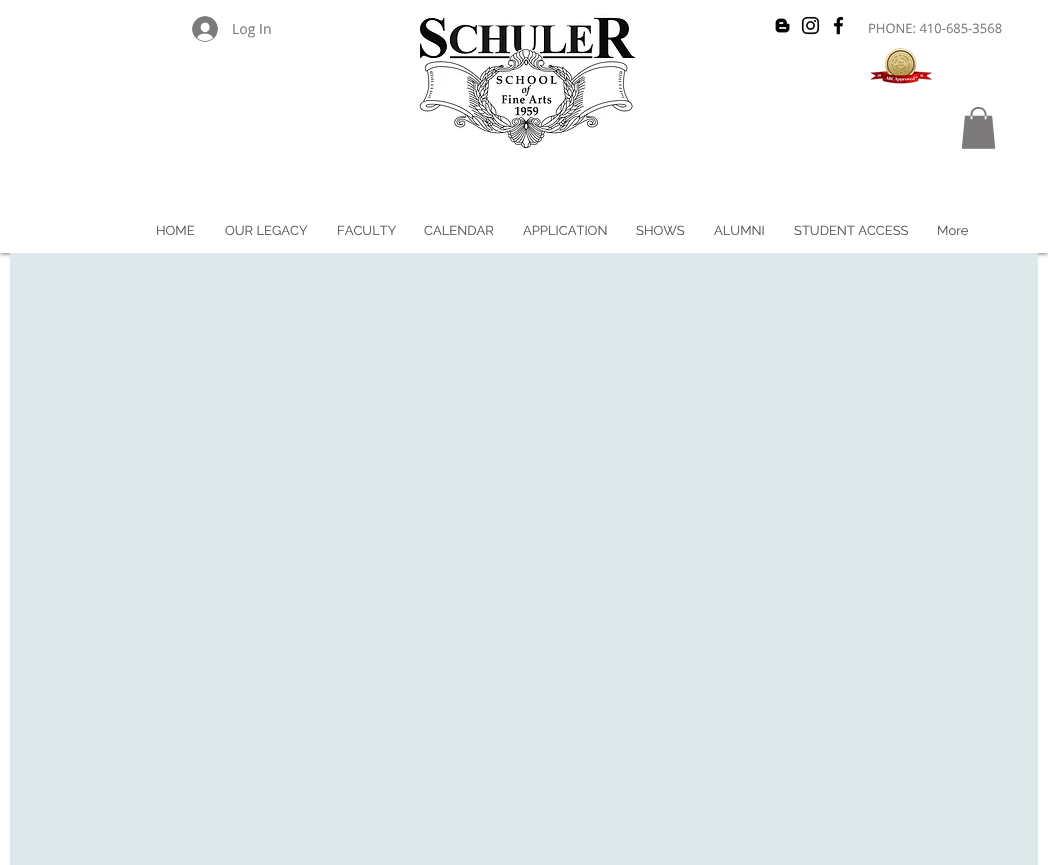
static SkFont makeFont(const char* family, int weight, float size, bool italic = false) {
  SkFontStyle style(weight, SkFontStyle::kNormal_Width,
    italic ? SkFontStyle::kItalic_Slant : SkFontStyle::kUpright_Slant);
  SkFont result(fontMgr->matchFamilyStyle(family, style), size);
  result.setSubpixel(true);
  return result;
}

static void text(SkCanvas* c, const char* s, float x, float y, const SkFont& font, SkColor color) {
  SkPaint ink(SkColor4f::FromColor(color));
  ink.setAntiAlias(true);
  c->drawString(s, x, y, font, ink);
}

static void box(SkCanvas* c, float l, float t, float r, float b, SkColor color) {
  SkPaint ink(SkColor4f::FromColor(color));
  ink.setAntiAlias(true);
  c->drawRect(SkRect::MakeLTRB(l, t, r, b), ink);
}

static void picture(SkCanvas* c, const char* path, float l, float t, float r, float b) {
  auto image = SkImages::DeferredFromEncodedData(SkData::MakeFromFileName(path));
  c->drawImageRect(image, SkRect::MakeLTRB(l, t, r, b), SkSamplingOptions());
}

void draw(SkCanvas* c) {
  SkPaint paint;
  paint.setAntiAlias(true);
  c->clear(0xffffffff);
  paint.setColor(0xb3000000);
  paint.setMaskFilter(SkMaskFilter::MakeBlur(kNormal_SkBlurStyle, 2.5f));
  c->drawRect(SkRect::MakeLTRB(0, 0, 1048, 253), paint);
  paint.setMaskFilter(nullptr);
  box(c, 0, 0, 1048, 253, 0xffffffff);
  picture(c, "img_01.png", 192, 16, 218, 42);
  SkFont face1 = makeFont("Open Sans", 400, 14);
  text(c, "Log In", 232, 34, face1, 0xff7c7a7a);
  picture(c, "img_02.png", 418, 15, 636, 148);
  picture(c, "img_03.png", 775, 18, 790, 33);
  picture(c, "img_04.png", 801, 16, 820, 35);
  picture(c, "img_05.png", 833, 16, 844, 35);
  SkFont face2 = makeFont("Open Sans", 400, 13);
  text(c, "PHONE: 410-685-3568", 868, 33, face2, 0xff7c7a7a);
  picture(c, "img_06.png", 870, 48, 932, 84);
  picture(c, "img_07.png", 961, 107, 996, 149);
  SkFont face3 = makeFont("Raleway", 400, 13);
  text(c, "HOME", 156, 235, face3, 0xff555555);
  text(c, "OUR LEGACY", 225, 235, face3, 0xff555555);
  text(c, "FACULTY", 337, 235, face3, 0xff555555);
  text(c, "CALENDAR", 424, 235, face3, 0xff555555);
  text(c, "APPLICATION", 523, 235, face3, 0xff555555);
  text(c, "SHOWS", 636, 235, face3, 0xff555555);
  text(c, "ALUMNI", 714, 235, face3, 0xff555555);
  text(c, "STUDENT ACCESS", 794, 235, face3, 0xff555555);
  text(c, "More", 937, 235, face3, 0xff555555);
  box(c, 10, 253, 1038, 865, 0xffdde8eb);
}
